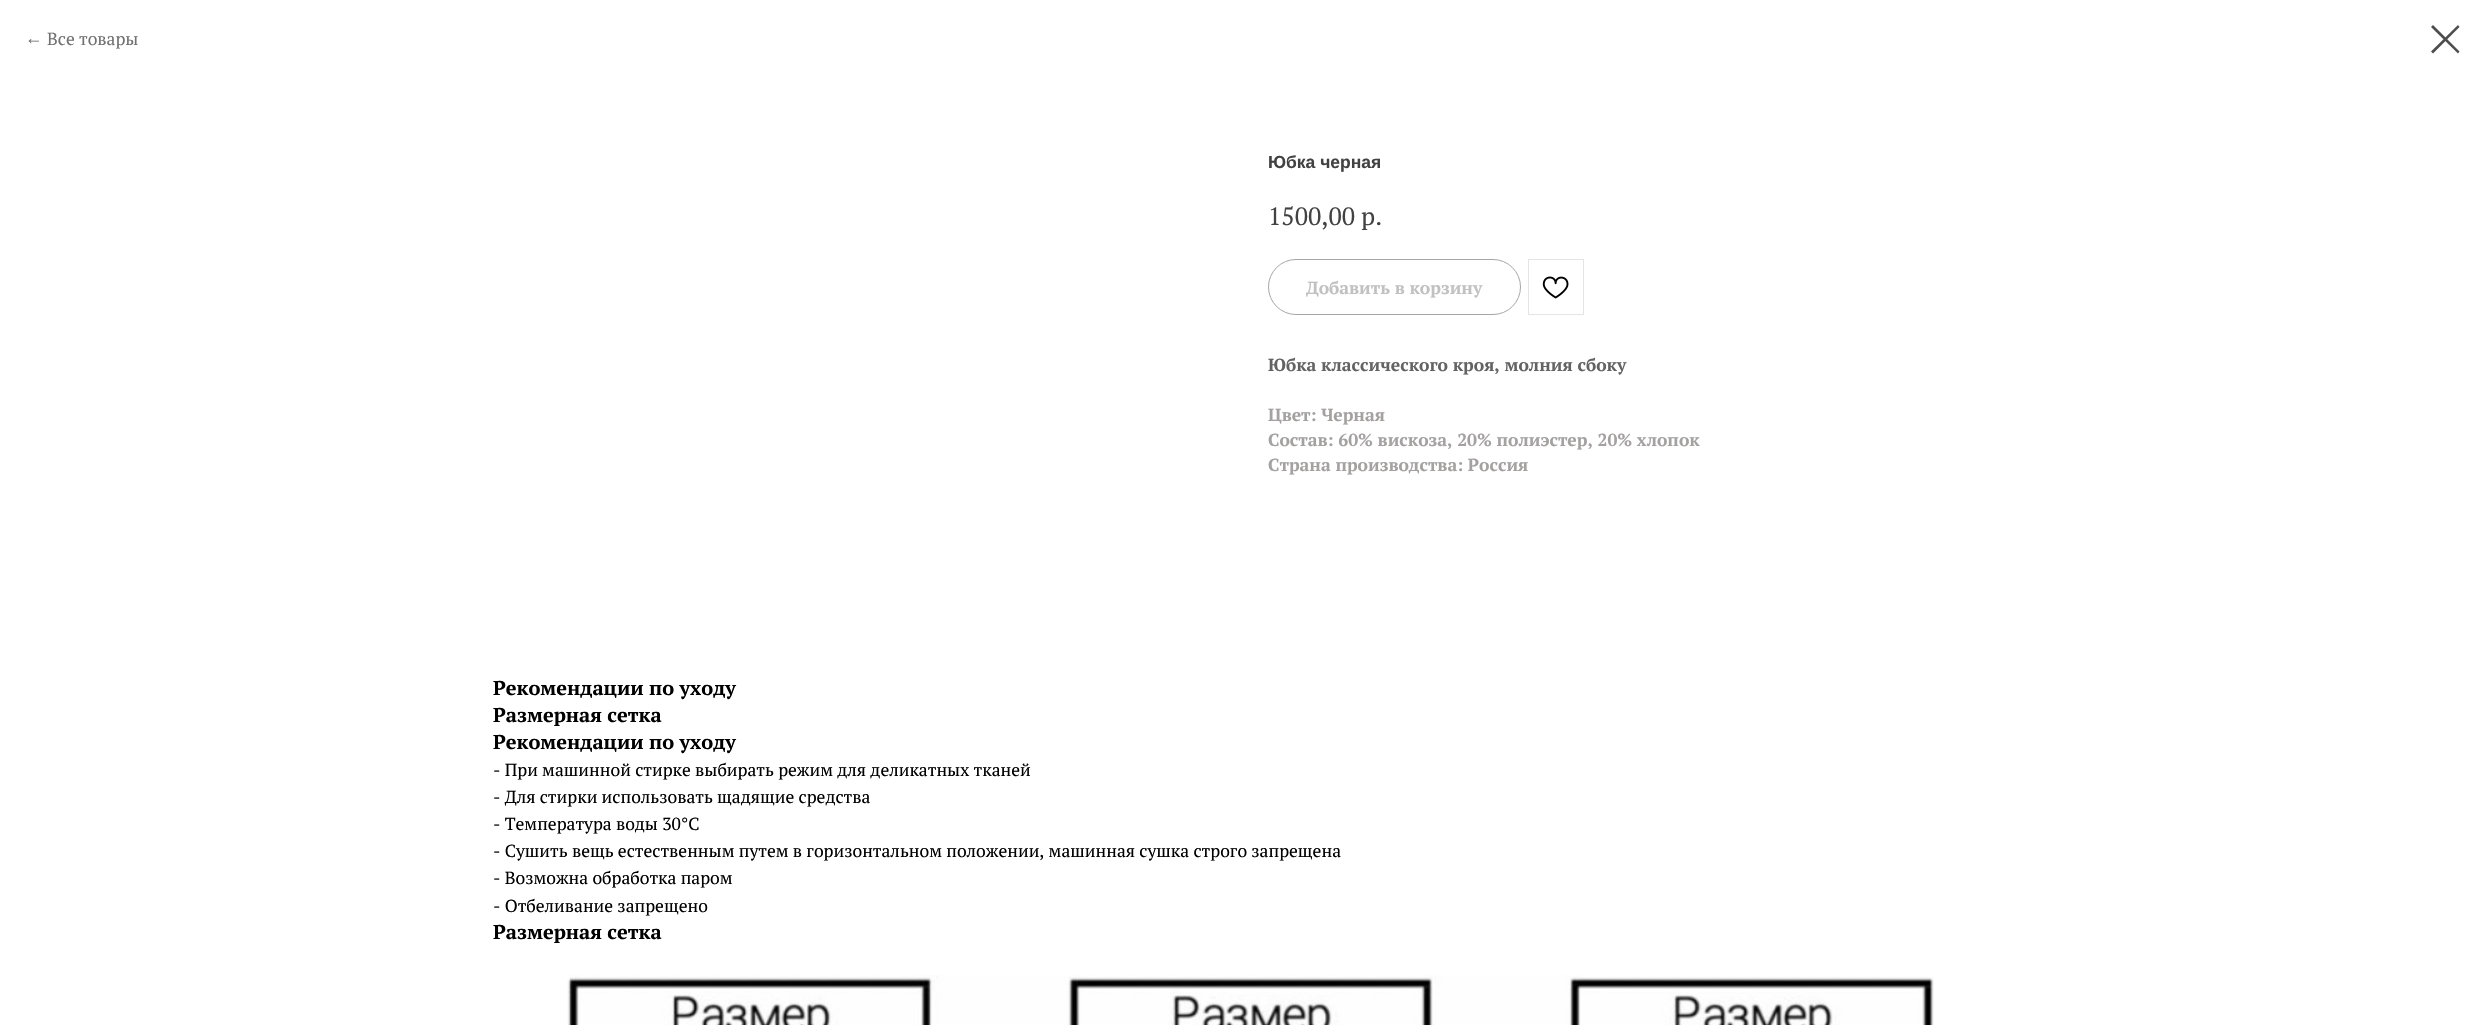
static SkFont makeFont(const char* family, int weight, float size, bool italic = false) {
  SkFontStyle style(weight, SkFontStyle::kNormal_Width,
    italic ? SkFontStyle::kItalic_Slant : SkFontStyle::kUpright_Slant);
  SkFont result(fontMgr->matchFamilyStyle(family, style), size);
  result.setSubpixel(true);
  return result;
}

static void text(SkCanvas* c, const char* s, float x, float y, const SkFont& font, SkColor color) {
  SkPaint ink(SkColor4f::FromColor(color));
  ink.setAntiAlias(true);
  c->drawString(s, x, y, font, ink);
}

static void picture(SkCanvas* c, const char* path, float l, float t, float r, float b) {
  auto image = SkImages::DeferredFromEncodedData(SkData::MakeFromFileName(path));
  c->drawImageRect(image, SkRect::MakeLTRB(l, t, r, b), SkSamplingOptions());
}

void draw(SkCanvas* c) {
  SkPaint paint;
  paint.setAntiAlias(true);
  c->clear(0xffffffff);
  SkFont face1 = makeFont("Liberation Sans", 400, 17.5f);
  text(c, "←", 25, 44, face1, 0xff717171);
  SkFont face2 = makeFont("PT Serif", 400, 17.5f);
  text(c, "Все товары", 47, 45, face2, 0xff717171);
  paint.setColor(0xff4d4d4d);
  c->drawPath(SkPathBuilder(SkPathFillType::kEvenOdd).moveTo(2431, 27).lineTo(2433, 25).lineTo(2459.5f, 51.5f).lineTo(2458, 53.5f).close().detach(), paint);
  c->drawPath(SkPathBuilder(SkPathFillType::kEvenOdd).moveTo(2458, 25).lineTo(2459.5f, 27).lineTo(2433, 53.5f).lineTo(2431, 51.5f).close().detach(), paint);
  SkFont face3 = makeFont("Liberation Sans", 700, 17.5f);
  text(c, "Юбка черная", 1268, 168, face3, 0xff424242);
  SkFont face4 = makeFont("PT Serif", 400, 25);
  text(c, "1500,00", 1268, 225, face4, 0xff424242);
  text(c, "р.", 1361, 225, face4, 0xff424242);
  paint.setStyle(SkPaint::kStroke_Style);
  paint.setStrokeWidth(1);
  paint.setColor(0xffa6a6a6);
  c->drawRoundRect(SkRect::MakeLTRB(1268.5f, 259.5f, 1520.5f, 314.5f), 27.5f, 27.5f, paint);
  SkFont face5 = makeFont("PT Serif", 700, 17.5f);
  text(c, "Добавить в корзину", 1306, 294, face5, 0xffc1c1c1);
  paint.setColor(0xffe4e4e4);
  c->drawRect(SkRect::MakeLTRB(1528.5f, 259.5f, 1583.5f, 314.5f), paint);
  picture(c, "img_01.png", 1542, 276, 1569, 299);
  text(c, "Юбка классического кроя, молния сбоку", 1268, 371, face5, 0xff636363);
  text(c, "Цвет: Черная", 1268, 421, face5, 0xffa4a1a1);
  text(c, "Состав: 60% вискоза, 20% полиэстер, 20% хлопок", 1268, 446, face5, 0xffa4a1a1);
  text(c, "Страна производства: Россия", 1268, 471, face5, 0xffa4a1a1);
  SkFont face6 = makeFont("PT Serif", 700, 20);
  text(c, "Рекомендации по уходу", 493, 695, face6, 0xff000000);
  text(c, "Размерная сетка", 493, 722, face6, 0xff000000);
  text(c, "Рекомендации по уходу", 493, 749, face6, 0xff000000);
  text(c, "- При машинной стирке выбирать режим для деликатных тканей", 493, 776, face2, 0xff000000);
  text(c, "- Для стирки использовать щадящие средства", 493, 803, face2, 0xff000000);
  text(c, "- Температура воды 30°С", 493, 830, face2, 0xff000000);
  text(c, "- Сушить вещь естественным путем в горизонтальном положении, машинная сушка строго запрещена", 493, 857, face2, 0xff000000);
  text(c, "- Возможна обработка паром", 493, 884, face2, 0xff000000);
  text(c, "- Отбеливание запрещено", 493, 912, face2, 0xff000000);
  text(c, "Размерная сетка", 493, 939, face6, 0xff000000);
  picture(c, "img_02.png", 567, 975, 1934, 1025);
}
